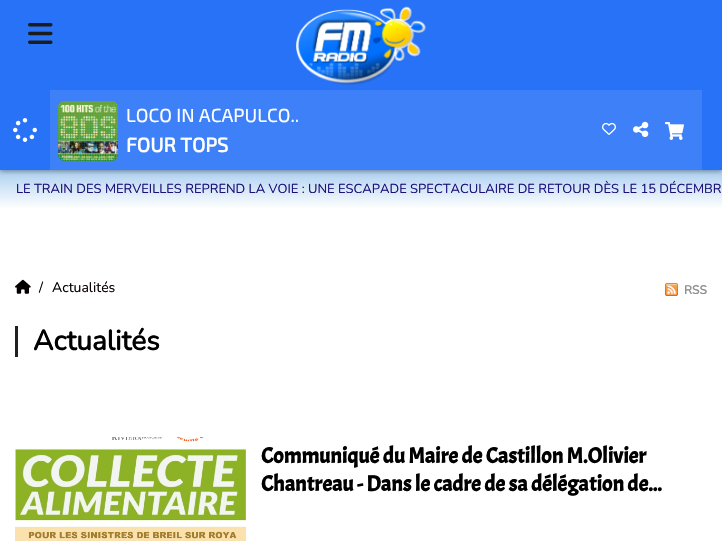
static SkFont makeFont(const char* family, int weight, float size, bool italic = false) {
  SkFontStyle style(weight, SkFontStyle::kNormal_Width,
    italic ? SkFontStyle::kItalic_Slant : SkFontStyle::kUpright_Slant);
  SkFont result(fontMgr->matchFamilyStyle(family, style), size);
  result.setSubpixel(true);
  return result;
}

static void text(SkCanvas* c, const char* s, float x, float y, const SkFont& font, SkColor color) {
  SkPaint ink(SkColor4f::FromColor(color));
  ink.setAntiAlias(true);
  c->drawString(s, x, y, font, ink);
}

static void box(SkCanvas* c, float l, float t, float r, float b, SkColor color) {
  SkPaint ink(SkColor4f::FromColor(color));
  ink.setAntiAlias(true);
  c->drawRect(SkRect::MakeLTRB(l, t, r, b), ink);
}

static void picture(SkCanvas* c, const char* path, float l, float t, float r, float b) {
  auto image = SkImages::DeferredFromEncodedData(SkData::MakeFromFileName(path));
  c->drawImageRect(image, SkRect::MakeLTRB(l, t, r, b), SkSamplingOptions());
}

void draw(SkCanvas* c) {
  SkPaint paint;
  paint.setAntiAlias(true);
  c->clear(0xffffffff);
  {
    const SkColor colors[] = {0xffacd0f1, 0xffffffff};
    const float stops[] = {0, 1};
    const SkPoint ends[] = {{361, 170}, {361, 209}};
    paint.setShader(SkGradientShader::MakeLinear(ends, colors, stops, 2, SkTileMode::kClamp));
    paint.setAlpha(255);
  }
  c->drawRect(SkRect::MakeLTRB(0, 170, 722, 208), paint);
  paint.setShader(nullptr);
  paint.setColor(0x66000000);
  paint.setMaskFilter(SkMaskFilter::MakeBlur(kNormal_SkBlurStyle, 2.5f));
  c->drawRect(SkRect::MakeLTRB(0, 91, 722, 171), paint);
  paint.setMaskFilter(nullptr);
  box(c, 0, 0, 722, 170, 0xff2772f7);
  picture(c, "img_01.png", 28, 23, 53, 44);
  picture(c, "img_02.png", 296, 6, 426, 85);
  picture(c, "img_03.png", 13, 118, 37, 142);
  box(c, 50, 90, 702, 170, 0xff3d80f8);
  picture(c, "img_04.png", 58, 101, 118, 161);
  SkFont face1 = makeFont("Exo 2", 400, 19);
  text(c, "LOCO IN ACAPULCO..", 126, 122, face1, 0xffffffff);
  SkFont face2 = makeFont("Exo 2", 700, 20);
  text(c, "FOUR TOPS", 126, 152, face2, 0xffffffff);
  picture(c, "img_05.png", 602, 122, 616, 135);
  picture(c, "img_06.png", 633, 121, 649, 138);
  picture(c, "img_07.png", 665, 122, 684, 140);
  SkFont face3 = makeFont("Nunito", 400, 13);
  text(c, "LE TRAIN DES MERVEILLES REPREND LA VOIE : UNE ESCAPADE SPECTACULAIRE DE RETOUR DÈS LE 15 DÉCEMBR", 16, 193, face3, 0xff1c0f79);
  picture(c, "img_08.png", 15, 279, 31, 294);
  SkFont face4 = makeFont("Nunito", 400, 14);
  text(c, "/", 39, 292, face4, 0xff000000);
  text(c, "Actualités", 52, 292, face4, 0xff080000);
  box(c, 15, 326, 18, 357, 0xff202020);
  picture(c, "img_09.png", 665, 283, 678, 296);
  SkFont face5 = makeFont("Nunito", 700, 12);
  text(c, "RSS", 684, 294, face5, 0xff8e8e8e);
  SkFont face6 = makeFont("Nunito", 700, 28);
  text(c, "Actualités", 33, 350, face6, 0xff000000);
  picture(c, "img_10.png", 15, 437, 246, 541);
  SkFont face7 = makeFont("Acme", 700, 22);
  text(c, "Communiqué du Maire de Castillon M.Olivier", 261, 463, face7, 0xff000000);
  text(c, "Chantreau - Dans le cadre de sa délégation de...", 261, 491, face7, 0xff000000);
}
